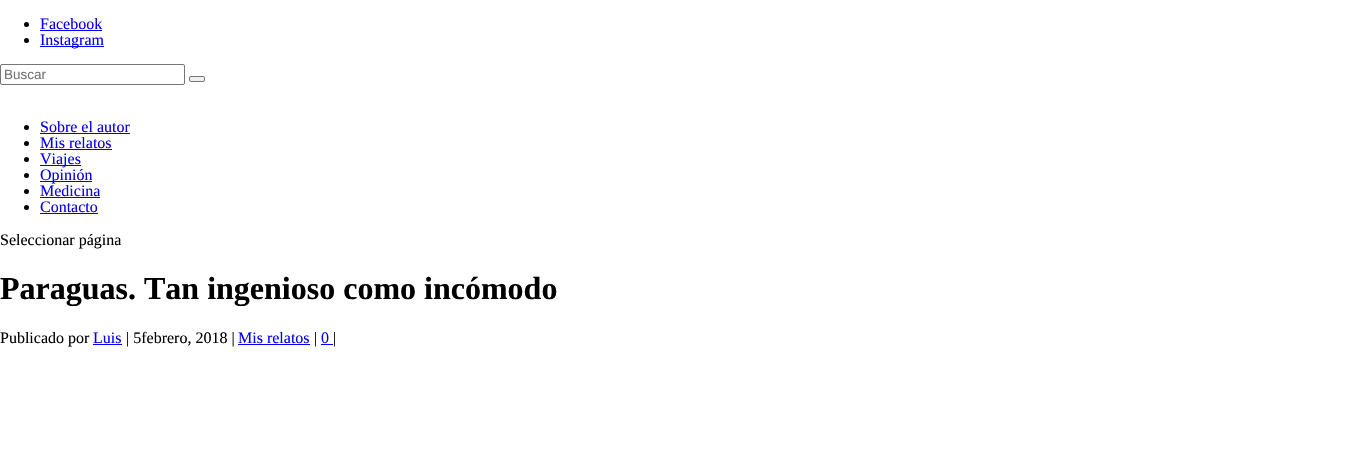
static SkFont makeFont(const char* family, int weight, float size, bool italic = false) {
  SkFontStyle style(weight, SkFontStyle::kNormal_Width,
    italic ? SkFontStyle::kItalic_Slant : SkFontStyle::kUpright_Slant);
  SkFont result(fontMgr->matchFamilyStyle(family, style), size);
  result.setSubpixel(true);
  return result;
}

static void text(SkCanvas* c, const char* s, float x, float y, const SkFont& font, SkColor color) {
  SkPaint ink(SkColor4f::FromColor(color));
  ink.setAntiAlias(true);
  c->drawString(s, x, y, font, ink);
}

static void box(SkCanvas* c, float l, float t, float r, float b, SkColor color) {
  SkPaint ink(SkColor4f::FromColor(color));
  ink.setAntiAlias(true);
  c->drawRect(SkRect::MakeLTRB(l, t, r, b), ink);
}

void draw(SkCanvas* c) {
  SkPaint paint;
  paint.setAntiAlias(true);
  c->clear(0xffffffff);
  paint.setColor(0xff000000);
  c->drawCircle(26.5f, 24.5f, 2.5f, paint);
  SkFont face1 = makeFont("Liberation Serif", 400, 16);
  text(c, "Facebook", 40, 29, face1, 0xff0000ee);
  box(c, 40, 30, 102, 31, 0xff0000ee);
  c->drawCircle(26.5f, 40.5f, 2.5f, paint);
  box(c, 40, 46, 104, 47, 0xff0000ee);
  text(c, "Instagram", 40, 45, face1, 0xff0000ee);
  paint.setStyle(SkPaint::kStroke_Style);
  paint.setStrokeWidth(1);
  paint.setColor(0xff767676);
  c->drawRoundRect(SkRect::MakeLTRB(0.5f, 64.5f, 184.5f, 84.5f), 1.5f, 1.5f, paint);
  SkFont face2 = makeFont("Liberation Sans", 400, 13.5f);
  text(c, "Buscar", 4, 79, face2, 0xff757575);
  paint.setStyle(SkPaint::kFill_Style);
  paint.setColor(0xffefefef);
  c->drawRoundRect(SkRect::MakeLTRB(189.5f, 76.5f, 204.5f, 81.5f), 1.5f, 1.5f, paint);
  paint.setStyle(SkPaint::kStroke_Style);
  paint.setColor(0xff767676);
  c->drawRoundRect(SkRect::MakeLTRB(189.5f, 76.5f, 204.5f, 81.5f), 1.5f, 1.5f, paint);
  paint.setStyle(SkPaint::kFill_Style);
  paint.setColor(0xff000000);
  c->drawCircle(26.5f, 127.5f, 2.5f, paint);
  text(c, "Sobre el autor", 40, 132, face1, 0xff0000ee);
  box(c, 40, 133, 130, 134, 0xff0000ee);
  c->drawCircle(26.5f, 143.5f, 2.5f, paint);
  text(c, "Mis relatos", 40, 148, face1, 0xff0000ee);
  box(c, 40, 149, 112, 150, 0xff0000ee);
  c->drawCircle(26.5f, 159.5f, 2.5f, paint);
  box(c, 40, 165, 81, 166, 0xff0000ee);
  text(c, "Viajes", 40, 164, face1, 0xff0000ee);
  c->drawCircle(26.5f, 175.5f, 2.5f, paint);
  box(c, 40, 181, 92, 182, 0xff0000ee);
  text(c, "Opinión", 40, 180, face1, 0xff0000ee);
  c->drawCircle(26.5f, 191.5f, 2.5f, paint);
  text(c, "Medicina", 40, 196, face1, 0xff0000ee);
  box(c, 40, 197, 100, 198, 0xff0000ee);
  c->drawCircle(26.5f, 207.5f, 2.5f, paint);
  text(c, "Contacto", 40, 212, face1, 0xff0000ee);
  box(c, 40, 213, 98, 214, 0xff0000ee);
  text(c, "Seleccionar página", 0, 245, face1, 0xff000000);
  SkFont face3 = makeFont("Liberation Serif", 700, 32);
  text(c, "Paraguas. Tan ingenioso como incómodo", 0, 299, face3, 0xff000000);
  text(c, "Publicado por", 0, 343, face1, 0xff000000);
  text(c, "Luis", 93, 343, face1, 0xff0000ee);
  box(c, 93, 344, 122, 345, 0xff0000ee);
  text(c, "| 5febrero, 2018 |", 126, 343, face1, 0xff000000);
  text(c, "Mis relatos", 238, 343, face1, 0xff0000ee);
  box(c, 238, 344, 310, 345, 0xff0000ee);
  text(c, "|", 314, 343, face1, 0xff000000);
  text(c, "0", 321, 343, face1, 0xff0000ee);
  box(c, 321, 344, 333, 345, 0xff0000ee);
  text(c, "|", 333, 343, face1, 0xff000000);
}
